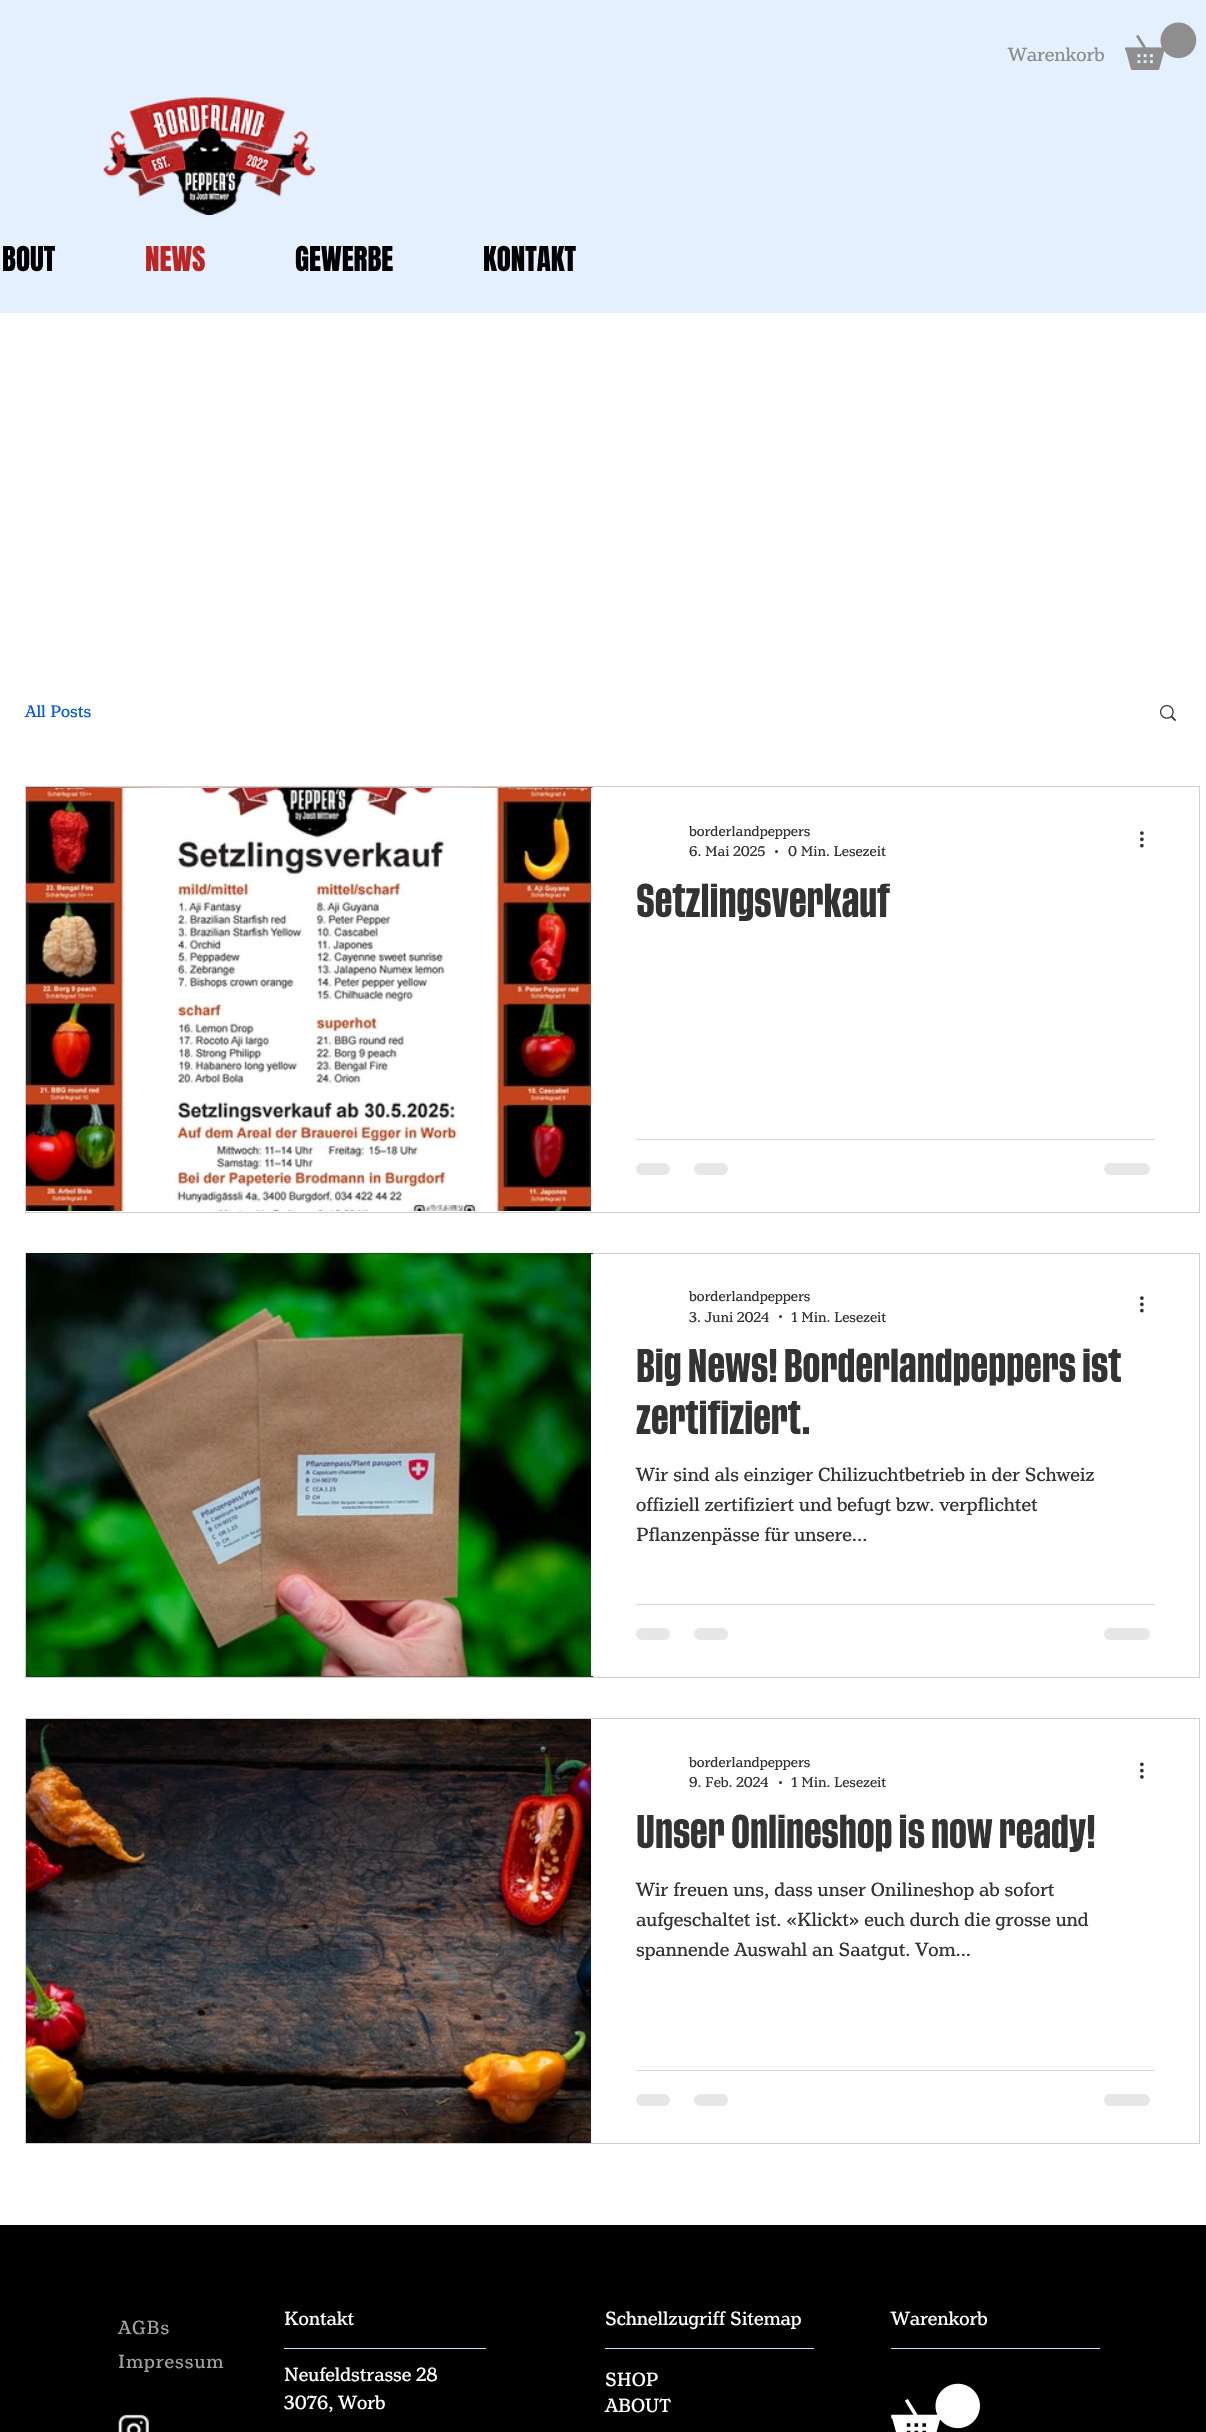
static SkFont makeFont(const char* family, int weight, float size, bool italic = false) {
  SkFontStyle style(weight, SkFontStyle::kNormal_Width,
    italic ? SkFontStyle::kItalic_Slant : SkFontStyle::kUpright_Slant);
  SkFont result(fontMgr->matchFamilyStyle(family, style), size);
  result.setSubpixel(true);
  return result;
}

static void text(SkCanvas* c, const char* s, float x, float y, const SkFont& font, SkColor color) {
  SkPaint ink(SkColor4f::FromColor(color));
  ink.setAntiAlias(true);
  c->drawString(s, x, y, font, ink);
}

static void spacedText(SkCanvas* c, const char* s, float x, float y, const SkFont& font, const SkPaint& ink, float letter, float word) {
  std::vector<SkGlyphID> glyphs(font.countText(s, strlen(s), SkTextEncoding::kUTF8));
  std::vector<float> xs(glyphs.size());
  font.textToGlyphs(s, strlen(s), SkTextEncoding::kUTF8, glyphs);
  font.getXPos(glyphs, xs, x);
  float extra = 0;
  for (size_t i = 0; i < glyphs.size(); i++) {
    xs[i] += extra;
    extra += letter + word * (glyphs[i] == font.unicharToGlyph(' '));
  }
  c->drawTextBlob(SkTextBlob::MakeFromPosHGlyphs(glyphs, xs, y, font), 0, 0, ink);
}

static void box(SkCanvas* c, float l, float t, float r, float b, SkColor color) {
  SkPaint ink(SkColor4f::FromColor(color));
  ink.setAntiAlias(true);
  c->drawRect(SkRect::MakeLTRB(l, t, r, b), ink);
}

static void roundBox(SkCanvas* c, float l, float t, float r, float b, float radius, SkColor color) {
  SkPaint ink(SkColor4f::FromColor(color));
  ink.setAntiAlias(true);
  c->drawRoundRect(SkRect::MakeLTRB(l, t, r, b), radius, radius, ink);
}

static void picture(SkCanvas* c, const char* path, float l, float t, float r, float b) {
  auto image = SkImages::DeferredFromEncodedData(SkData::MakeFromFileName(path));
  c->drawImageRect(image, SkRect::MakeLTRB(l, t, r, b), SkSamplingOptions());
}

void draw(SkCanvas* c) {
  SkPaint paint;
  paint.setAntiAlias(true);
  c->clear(0xffffffff);
  box(c, 0, 0, 1206, 313, 0xffe5f0fe);
  SkFont face1 = makeFont("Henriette", 400, 20);
  text(c, "Warenkorb", 1008, 61, face1, 0xff8e8e8e);
  picture(c, "img_01.png", 1125, 22, 1197, 70);
  picture(c, "img_02.png", 103, 97, 315, 215);
  SkFont face2 = makeFont("Anton", 400, 29);
  text(c, "BOUT", 2, 271, face2, 0xff000000);
  text(c, "NEWS", 145, 271, face2, 0xffbc2524);
  text(c, "GEWERBE", 295, 271, face2, 0xff000000);
  text(c, "KONTAKT", 483, 271, face2, 0xff000000);
  SkFont face3 = makeFont("Henriette", 400, 17.5f);
  text(c, "All Posts", 25, 717, face3, 0xff0057e1);
  picture(c, "img_03.png", 1160, 705, 1176, 721);
  paint.setStyle(SkPaint::kStroke_Style);
  paint.setStrokeWidth(1);
  paint.setColor(0xffcfcece);
  c->drawRect(SkRect::MakeLTRB(25.5f, 786.5f, 1199.5f, 1212.5f), paint);
  picture(c, "img_04.png", 26, 787, 593, 788);
  picture(c, "img_05.png", 26, 788, 591, 1211);
  SkFont face4 = makeFont("Henriette", 400, 15);
  text(c, "borderlandpeppers", 689, 836, face4, 0xff333333);
  text(c, "6. Mai 2025", 689, 856, face4, 0xff333333);
  paint.setStyle(SkPaint::kFill_Style);
  paint.setColor(0xff333333);
  c->drawCircle(776.5f, 851.5f, 1.5f, paint);
  text(c, "0 Min. Lesezeit", 788, 856, face4, 0xff333333);
  picture(c, "img_06.png", 1140, 831, 1144, 848);
  SkFont face5 = makeFont("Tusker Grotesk", 600, 35);
  text(c, "Setzlingsverkauf", 636, 917, face5, 0xff333333);
  box(c, 636, 1139, 1154, 1140, 0xffd6d6d6);
  roundBox(c, 636, 1163, 670, 1175, 6, 0xffe7e7e7);
  roundBox(c, 694, 1163, 728, 1175, 6, 0xffe7e7e7);
  roundBox(c, 1104, 1163, 1150, 1175, 6, 0xffe7e7e7);
  paint.setStyle(SkPaint::kStroke_Style);
  paint.setColor(0xffcfcece);
  c->drawRect(SkRect::MakeLTRB(25.5f, 1253.5f, 1199.5f, 1677.5f), paint);
  picture(c, "img_07.png", 26, 1253, 593, 1677);
  picture(c, "img_08.png", 26, 1254, 591, 1676);
  box(c, 591, 1254, 593, 1676, 0xffffffff);
  text(c, "borderlandpeppers", 689, 1301, face4, 0xff333333);
  text(c, "3. Juni 2024", 689, 1322, face4, 0xff333333);
  paint.setStyle(SkPaint::kFill_Style);
  paint.setColor(0xff333333);
  c->drawCircle(780.5f, 1316.5f, 1.5f, paint);
  c->save();
  c->clipRect(SkRect::MakeLTRB(791, 1308, 886, 1325));
  text(c, "1 Min. Lesezeit", 791, 1322, face4, 0xff333333);
  c->restore();
  picture(c, "img_06.png", 1140, 1296, 1144, 1313);
  text(c, "Big News! Borderlandpeppers ist", 636, 1382, face5, 0xff333333);
  text(c, "zertifiziert.", 636, 1434, face5, 0xff333333);
  text(c, "Wir sind als einziger Chilizuchtbetrieb in der Schweiz", 636, 1481, face1, 0xff333333);
  text(c, "offiziell zertifiziert und befugt bzw. verpflichtet", 636, 1511, face1, 0xff333333);
  text(c, "Pflanzenpässe für unsere...", 636, 1541, face1, 0xff333333);
  box(c, 636, 1604, 1154, 1605, 0xffd6d6d6);
  roundBox(c, 636, 1628, 670, 1640, 6, 0xffe7e7e7);
  roundBox(c, 694, 1628, 728, 1640, 6, 0xffe7e7e7);
  roundBox(c, 1104, 1628, 1150, 1640, 6, 0xffe7e7e7);
  paint.setStyle(SkPaint::kStroke_Style);
  paint.setColor(0xffcfcece);
  c->drawRect(SkRect::MakeLTRB(25.5f, 1718.5f, 1199.5f, 2143.5f), paint);
  picture(c, "img_09.png", 26, 1719, 591, 2143);
  text(c, "borderlandpeppers", 689, 1767, face4, 0xff333333);
  text(c, "9. Feb. 2024", 689, 1787, face4, 0xff333333);
  paint.setStyle(SkPaint::kFill_Style);
  paint.setColor(0xff333333);
  c->drawCircle(780.5f, 1782.5f, 1.5f, paint);
  text(c, "1 Min. Lesezeit", 791, 1787, face4, 0xff333333);
  picture(c, "img_10.png", 1140, 1762, 1144, 1779);
  text(c, "Unser Onlineshop is now ready!", 636, 1848, face5, 0xff333333);
  text(c, "Wir freuen uns, dass unser Onilineshop ab sofort", 636, 1896, face1, 0xff333333);
  text(c, "aufgeschaltet ist. «Klickt» euch durch die grosse und", 636, 1926, face1, 0xff333333);
  text(c, "spannende Auswahl an Saatgut. Vom...", 636, 1956, face1, 0xff333333);
  box(c, 636, 2070, 1154, 2071, 0xffd6d6d6);
  roundBox(c, 636, 2094, 670, 2106, 6, 0xffe7e7e7);
  roundBox(c, 694, 2094, 728, 2106, 6, 0xffe7e7e7);
  roundBox(c, 1104, 2094, 1150, 2106, 6, 0xffe7e7e7);
  box(c, 0, 2225, 1206, 2432, 0xff000000);
  text(c, "Kontakt", 284, 2325, face1, 0xffffffff);
  text(c, "Neufeldstrasse 28", 284, 2381, face1, 0xffffffff);
  text(c, "3076, Worb", 284, 2409, face1, 0xffffffff);
  text(c, "Schnellzugriff Sitemap", 605, 2325, face1, 0xffffffff);
  text(c, "Warenkorb", 891, 2325, face1, 0xffffffff);
  paint.setColor(0xffa0a09f);
  spacedText(c, "AGBs", 118, 2334, face1, paint, 1, 0);
  box(c, 284, 2348, 486, 2349, 0xffc8e0fe);
  box(c, 605, 2348, 814, 2349, 0xffc8e0fe);
  box(c, 891, 2348, 1100, 2349, 0xffc8e0fe);
  spacedText(c, "Impressum", 118, 2368, face1, paint, 1, 0);
  picture(c, "img_11.png", 118, 2414, 149, 2432);
  text(c, "SHOP", 605, 2386, face1, 0xffffffff);
  text(c, "ABOUT", 605, 2412, face1, 0xffffffff);
  picture(c, "img_12.png", 891, 2383, 980, 2432);
}
